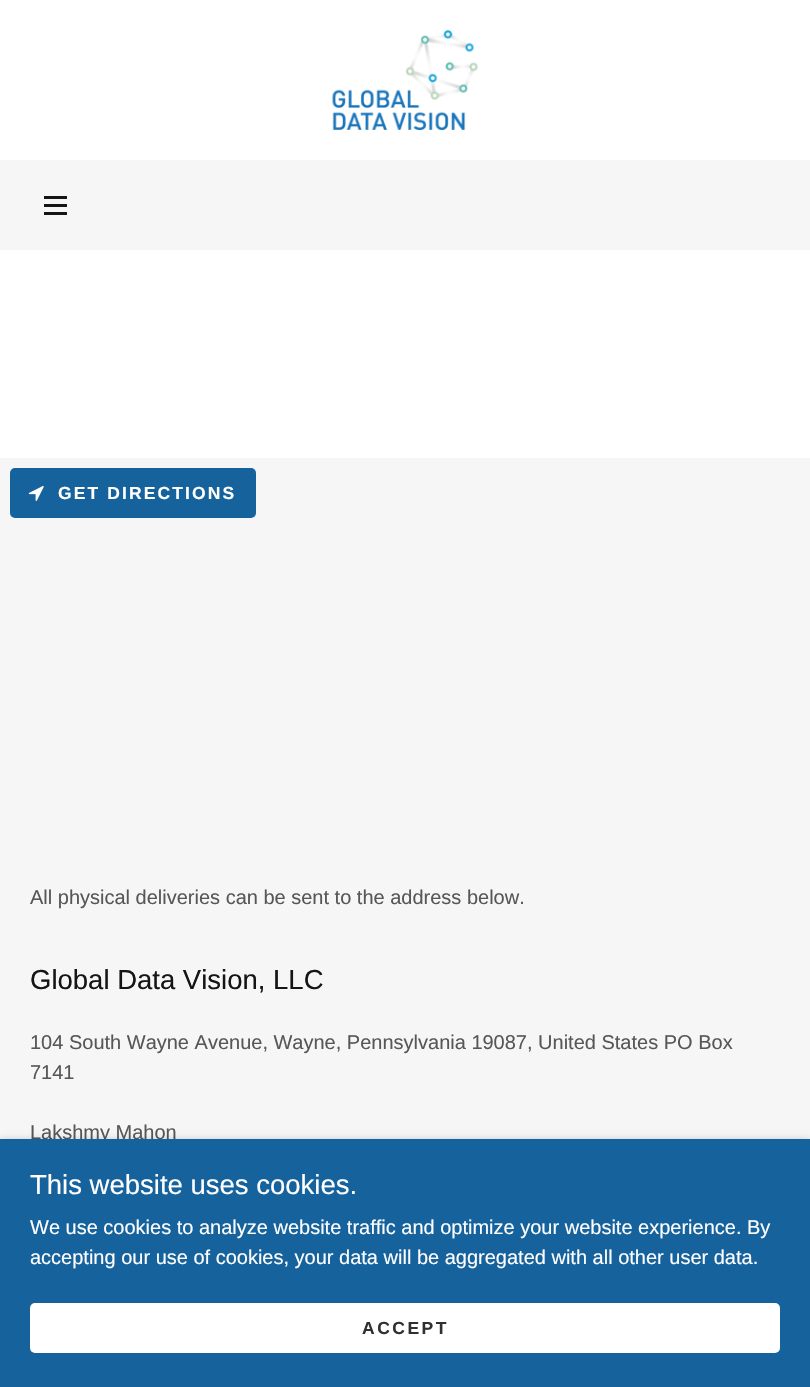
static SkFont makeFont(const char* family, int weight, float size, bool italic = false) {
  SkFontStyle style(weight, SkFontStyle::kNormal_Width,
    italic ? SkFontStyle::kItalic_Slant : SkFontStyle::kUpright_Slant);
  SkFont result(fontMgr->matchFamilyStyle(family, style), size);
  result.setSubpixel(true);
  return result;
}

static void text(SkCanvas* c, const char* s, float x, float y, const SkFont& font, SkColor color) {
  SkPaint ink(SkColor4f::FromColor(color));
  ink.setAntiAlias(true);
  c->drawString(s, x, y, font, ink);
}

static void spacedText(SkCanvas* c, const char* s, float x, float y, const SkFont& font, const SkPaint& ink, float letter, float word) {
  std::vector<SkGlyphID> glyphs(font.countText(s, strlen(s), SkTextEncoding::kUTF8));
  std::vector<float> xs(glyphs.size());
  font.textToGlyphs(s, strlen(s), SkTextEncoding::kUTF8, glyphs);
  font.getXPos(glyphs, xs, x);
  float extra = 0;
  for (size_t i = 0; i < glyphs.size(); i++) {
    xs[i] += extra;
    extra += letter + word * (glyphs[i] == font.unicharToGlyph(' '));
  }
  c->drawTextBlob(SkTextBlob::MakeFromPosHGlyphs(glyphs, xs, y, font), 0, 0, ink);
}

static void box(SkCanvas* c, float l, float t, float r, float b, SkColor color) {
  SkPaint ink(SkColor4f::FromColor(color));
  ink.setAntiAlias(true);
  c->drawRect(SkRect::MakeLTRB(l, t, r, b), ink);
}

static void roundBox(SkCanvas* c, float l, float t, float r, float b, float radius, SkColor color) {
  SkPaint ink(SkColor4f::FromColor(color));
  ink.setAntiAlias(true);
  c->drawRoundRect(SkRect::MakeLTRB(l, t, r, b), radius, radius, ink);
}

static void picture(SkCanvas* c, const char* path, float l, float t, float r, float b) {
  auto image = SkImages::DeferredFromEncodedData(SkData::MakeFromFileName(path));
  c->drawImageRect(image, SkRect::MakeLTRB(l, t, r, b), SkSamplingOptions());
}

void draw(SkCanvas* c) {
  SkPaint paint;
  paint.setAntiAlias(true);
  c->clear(0xffffffff);
  picture(c, "img_01.png", 332, 30, 478, 130);
  box(c, 0, 160, 810, 250, 0xfff6f6f6);
  box(c, 44, 196, 67, 199, 0xff151515);
  box(c, 44, 204, 67, 207, 0xff151515);
  box(c, 44, 212, 67, 215, 0xff151515);
  box(c, 0, 458, 810, 1139, 0xfff6f6f6);
  roundBox(c, 10, 468, 256, 518, 5, 0xff16629d);
  picture(c, "img_02.png", 28, 486, 44, 501);
  SkFont face1 = makeFont("Liberation Sans", 700, 17.5f);
  paint.setColor(0xffffffff);
  spacedText(c, "GET DIRECTIONS", 58, 499, face1, paint, 2.1f, 0);
  SkFont face2 = makeFont("Liberation Sans", 400, 20);
  text(c, "All physical deliveries can be sent to the address below.", 30, 904, face2, 0xff575757);
  SkFont face3 = makeFont("Liberation Sans", 400, 27.5f);
  text(c, "Global Data Vision, LLC", 30, 989, face3, 0xff151515);
  text(c, "104 South Wayne Avenue, Wayne, Pennsylvania 19087, United States PO Box", 30, 1049, face2, 0xff575757);
  text(c, "7141", 30, 1079, face2, 0xff575757);
  text(c, "Lakshmy Mahon", 30, 1139, face2, 0xff575757);
  paint.setColor(0x4d000000);
  paint.setMaskFilter(SkMaskFilter::MakeBlur(kNormal_SkBlurStyle, 4));
  c->drawRect(SkRect::MakeLTRB(0, 1141, 810, 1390), paint);
  paint.setMaskFilter(nullptr);
  box(c, 0, 1139, 810, 1387, 0xff16629d);
  text(c, "This website uses cookies.", 30, 1194, face3, 0xffffffff);
  text(c, "We use cookies to analyze website traffic and optimize your website experience. By", 30, 1234, face2, 0xffffffff);
  text(c, "accepting our use of cookies, your data will be aggregated with all other user data.", 30, 1264, face2, 0xffffffff);
  roundBox(c, 30, 1303, 780, 1353, 5, 0xffffffff);
  paint.setColor(0xff303030);
  spacedText(c, "ACCEPT", 362, 1334, face1, paint, 2.5f, 0);
}
